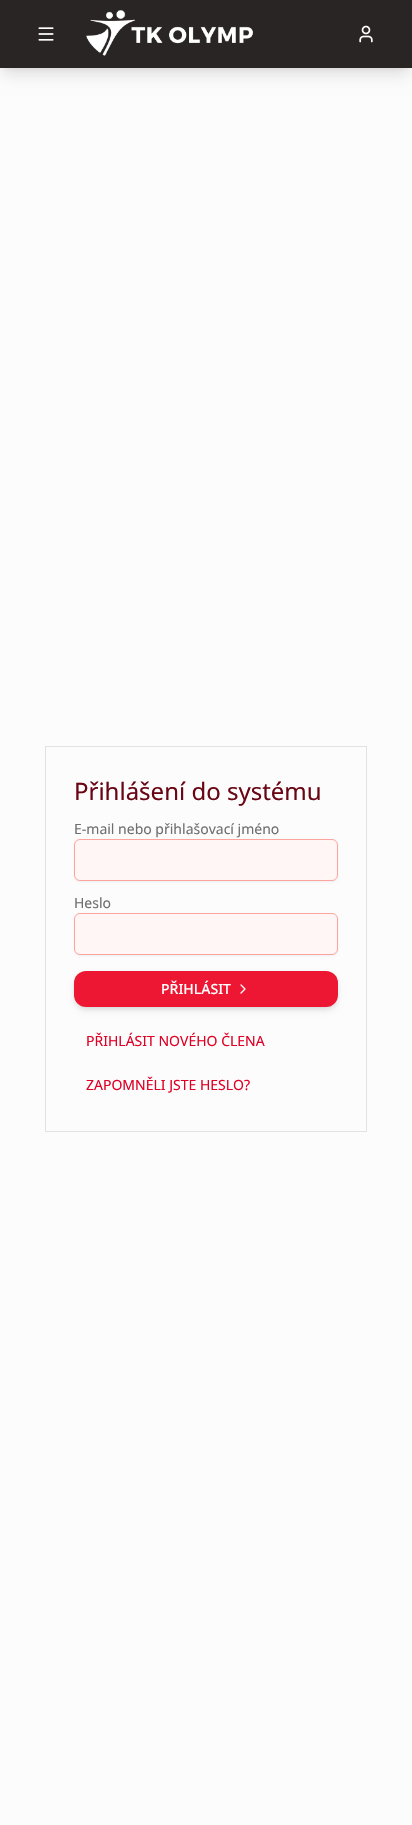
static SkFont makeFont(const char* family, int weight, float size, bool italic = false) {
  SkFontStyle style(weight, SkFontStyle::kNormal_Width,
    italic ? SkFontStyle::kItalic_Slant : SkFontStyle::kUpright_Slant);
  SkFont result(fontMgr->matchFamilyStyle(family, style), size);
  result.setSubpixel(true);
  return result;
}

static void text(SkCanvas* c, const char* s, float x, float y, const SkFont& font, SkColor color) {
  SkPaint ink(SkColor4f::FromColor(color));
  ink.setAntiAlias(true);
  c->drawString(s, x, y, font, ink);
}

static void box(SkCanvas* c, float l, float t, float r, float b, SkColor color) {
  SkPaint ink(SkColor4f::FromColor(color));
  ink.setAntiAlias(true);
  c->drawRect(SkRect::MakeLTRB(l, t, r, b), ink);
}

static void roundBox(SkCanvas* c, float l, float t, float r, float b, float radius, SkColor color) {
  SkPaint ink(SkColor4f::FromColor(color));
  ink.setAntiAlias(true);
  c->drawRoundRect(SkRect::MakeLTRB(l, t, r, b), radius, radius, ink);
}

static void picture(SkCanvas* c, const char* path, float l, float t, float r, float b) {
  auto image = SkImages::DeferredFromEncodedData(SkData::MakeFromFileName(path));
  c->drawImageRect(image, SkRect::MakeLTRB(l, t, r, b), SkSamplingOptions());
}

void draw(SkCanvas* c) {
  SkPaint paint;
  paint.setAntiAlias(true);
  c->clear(0xfffcfcfc);
  paint.setColor(0x1a000000);
  paint.setMaskFilter(SkMaskFilter::MakeBlur(kNormal_SkBlurStyle, 3));
  c->drawRect(SkRect::MakeLTRB(4, 8, 408, 68), paint);
  paint.setMaskFilter(nullptr);
  paint.setMaskFilter(SkMaskFilter::MakeBlur(kNormal_SkBlurStyle, 7.5f));
  c->drawRect(SkRect::MakeLTRB(3, 13, 409, 75), paint);
  paint.setMaskFilter(nullptr);
  box(c, 0, 0, 412, 68, 0xff292524);
  picture(c, "img_01.png", 38, 27, 54, 41);
  picture(c, "img_02.png", 86, 10, 253, 56);
  picture(c, "img_03.png", 359, 25, 373, 43);
  paint.setStyle(SkPaint::kStroke_Style);
  paint.setStrokeWidth(1);
  paint.setColor(0xffe2e2e2);
  c->drawRect(SkRect::MakeLTRB(45.5f, 746.5f, 366.5f, 1131.5f), paint);
  SkFont face1 = makeFont("Noto Sans", 400, 24);
  text(c, "Přihlášení do systému", 74, 800, face1, 0xff6a0613);
  SkFont face2 = makeFont("Noto Sans", 400, 14);
  text(c, "E-mail nebo přihlašovací jméno", 74, 834, face2, 0xff6f6f6f);
  paint.setStyle(SkPaint::kFill_Style);
  paint.setColor(0x0d000000);
  paint.setMaskFilter(SkMaskFilter::MakeBlur(kNormal_SkBlurStyle, 1));
  c->drawRoundRect(SkRect::MakeLTRB(74, 840, 338, 882), 6, 6, paint);
  paint.setMaskFilter(nullptr);
  paint.setColor(0xfffff6f5);
  c->drawRoundRect(SkRect::MakeLTRB(74.5f, 839.5f, 337.5f, 880.5f), 5.5f, 5.5f, paint);
  paint.setStyle(SkPaint::kStroke_Style);
  paint.setColor(0xfffea49f);
  c->drawRoundRect(SkRect::MakeLTRB(74.5f, 839.5f, 337.5f, 880.5f), 5.5f, 5.5f, paint);
  text(c, "Heslo", 74, 908, face2, 0xff6f6f6f);
  paint.setStyle(SkPaint::kFill_Style);
  paint.setColor(0x0d000000);
  paint.setMaskFilter(SkMaskFilter::MakeBlur(kNormal_SkBlurStyle, 1));
  c->drawRoundRect(SkRect::MakeLTRB(74, 914, 338, 956), 6, 6, paint);
  paint.setMaskFilter(nullptr);
  paint.setColor(0xfffff6f5);
  c->drawRoundRect(SkRect::MakeLTRB(74.5f, 913.5f, 337.5f, 954.5f), 5.5f, 5.5f, paint);
  paint.setStyle(SkPaint::kStroke_Style);
  paint.setColor(0xfffea49f);
  c->drawRoundRect(SkRect::MakeLTRB(74.5f, 913.5f, 337.5f, 954.5f), 5.5f, 5.5f, paint);
  paint.setStyle(SkPaint::kFill_Style);
  paint.setColor(0x1a000000);
  paint.setMaskFilter(SkMaskFilter::MakeBlur(kNormal_SkBlurStyle, 2));
  c->drawRoundRect(SkRect::MakeLTRB(76, 975, 336, 1007), 10, 10, paint);
  paint.setMaskFilter(nullptr);
  paint.setMaskFilter(SkMaskFilter::MakeBlur(kNormal_SkBlurStyle, 3));
  c->drawRoundRect(SkRect::MakeLTRB(75, 976, 337, 1010), 11, 11, paint);
  paint.setMaskFilter(nullptr);
  roundBox(c, 74, 971, 338, 1007, 12, 0xffee1733);
  SkFont face3 = makeFont("Noto Sans", 500, 14);
  text(c, "PŘIHLÁSIT", 161, 994, face3, 0xffffffff);
  paint.setStyle(SkPaint::kStroke_Style);
  paint.setStrokeWidth(1.3f);
  paint.setStrokeCap(SkPaint::kRound_Cap);
  paint.setStrokeJoin(SkPaint::kRound_Join);
  paint.setColor(0xffffffff);
  c->drawPath(SkPathBuilder().moveTo(241, 993).lineTo(245, 989).lineTo(241, 985).detach(), paint);
  text(c, "PŘIHLÁSIT NOVÉHO ČLENA", 86, 1046, face2, 0xffe00025);
  text(c, "ZAPOMNĚLI JSTE HESLO?", 86, 1090, face2, 0xffe00025);
}
